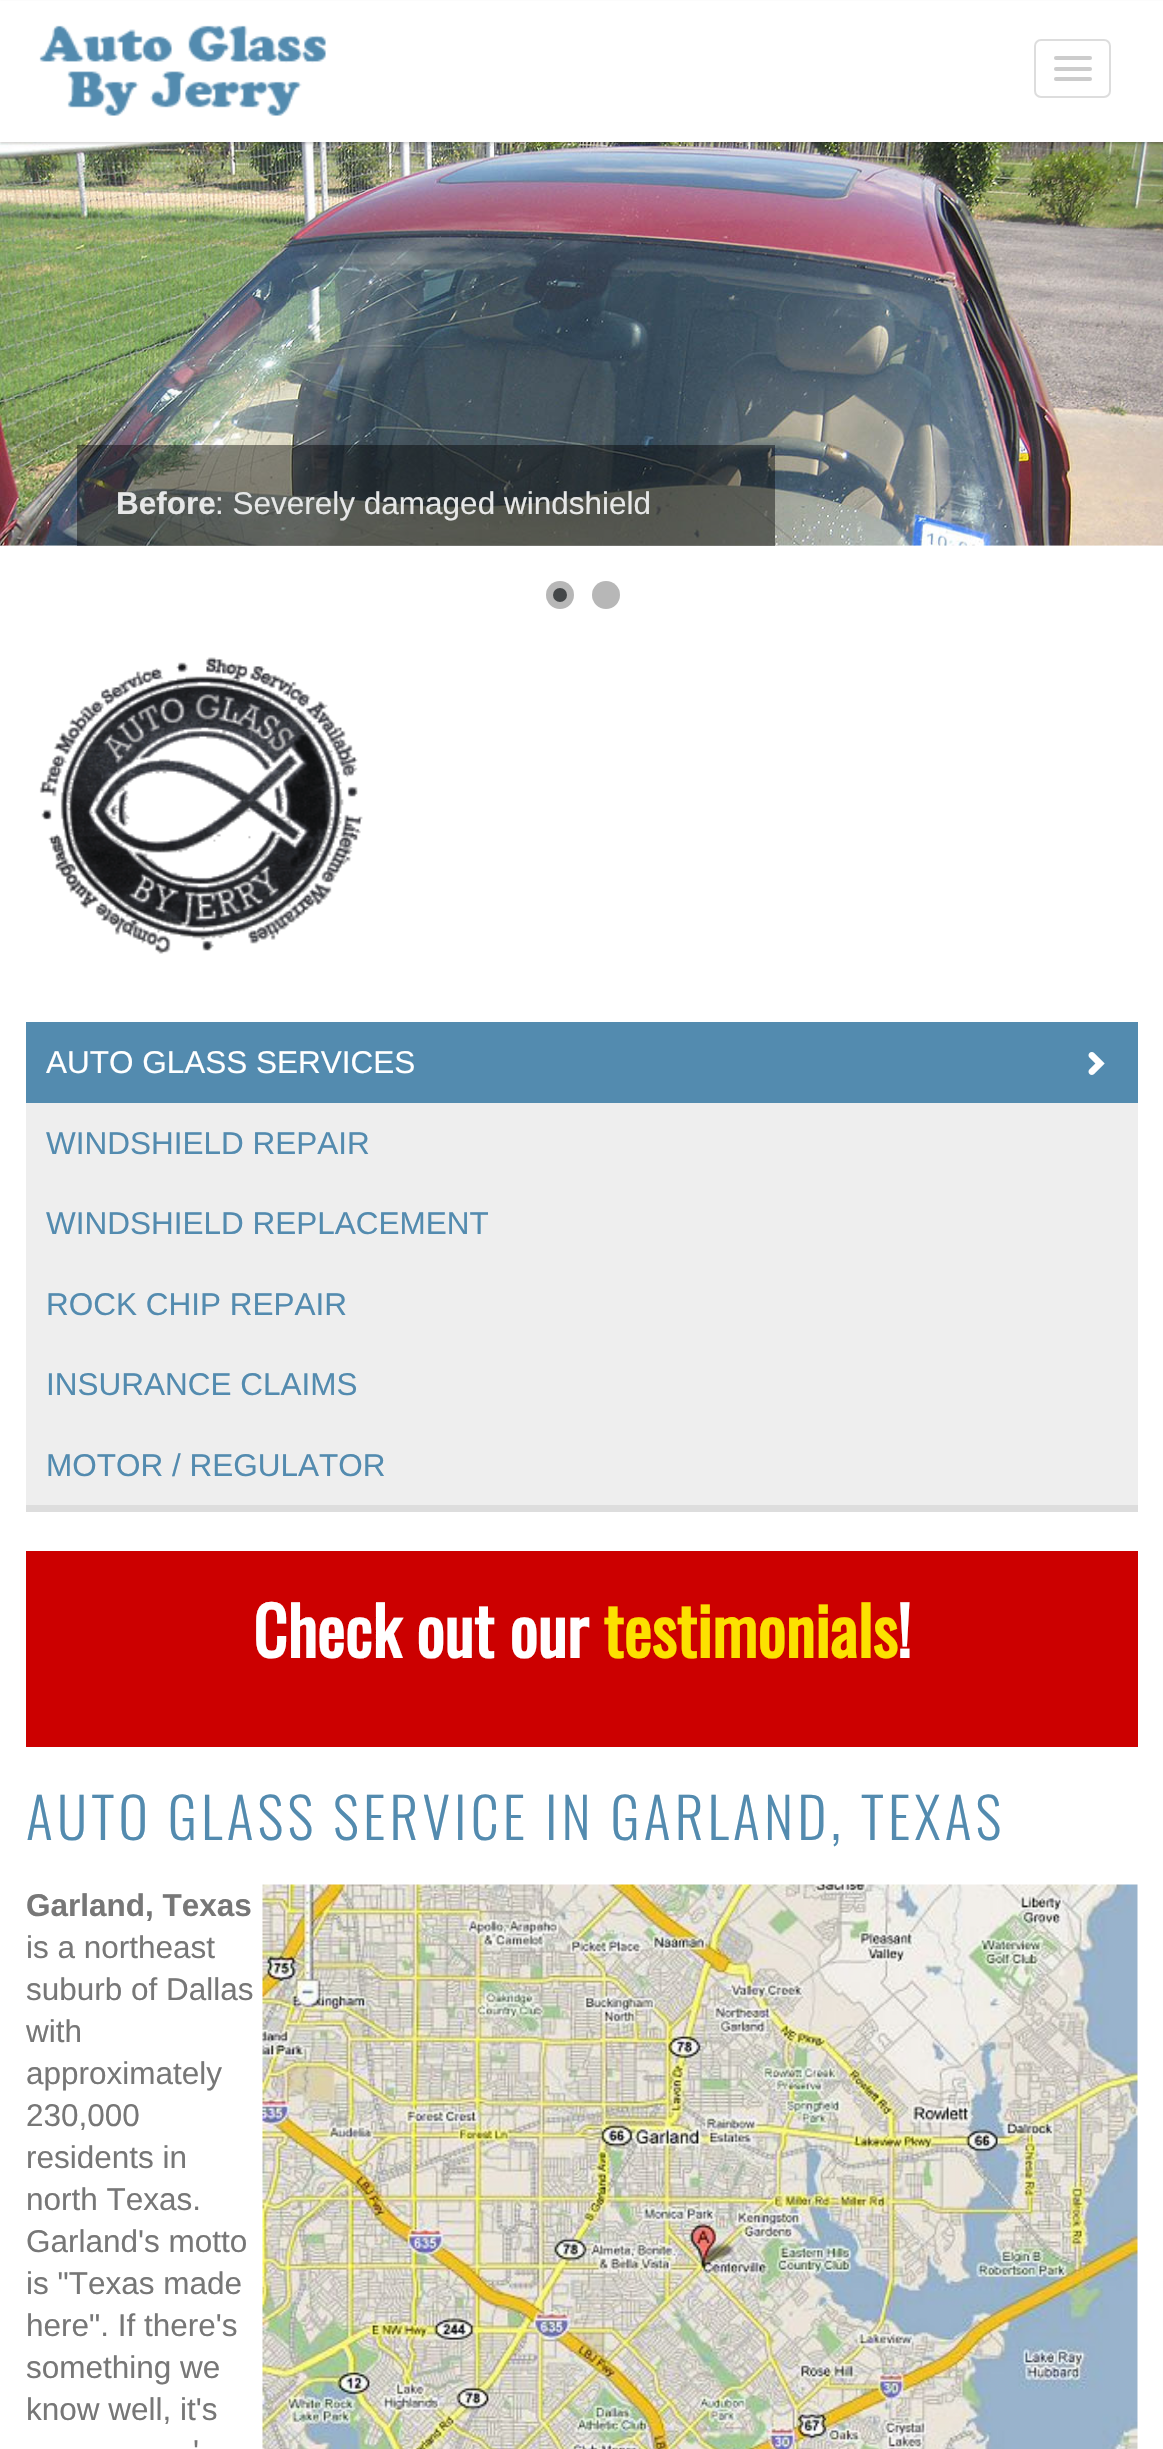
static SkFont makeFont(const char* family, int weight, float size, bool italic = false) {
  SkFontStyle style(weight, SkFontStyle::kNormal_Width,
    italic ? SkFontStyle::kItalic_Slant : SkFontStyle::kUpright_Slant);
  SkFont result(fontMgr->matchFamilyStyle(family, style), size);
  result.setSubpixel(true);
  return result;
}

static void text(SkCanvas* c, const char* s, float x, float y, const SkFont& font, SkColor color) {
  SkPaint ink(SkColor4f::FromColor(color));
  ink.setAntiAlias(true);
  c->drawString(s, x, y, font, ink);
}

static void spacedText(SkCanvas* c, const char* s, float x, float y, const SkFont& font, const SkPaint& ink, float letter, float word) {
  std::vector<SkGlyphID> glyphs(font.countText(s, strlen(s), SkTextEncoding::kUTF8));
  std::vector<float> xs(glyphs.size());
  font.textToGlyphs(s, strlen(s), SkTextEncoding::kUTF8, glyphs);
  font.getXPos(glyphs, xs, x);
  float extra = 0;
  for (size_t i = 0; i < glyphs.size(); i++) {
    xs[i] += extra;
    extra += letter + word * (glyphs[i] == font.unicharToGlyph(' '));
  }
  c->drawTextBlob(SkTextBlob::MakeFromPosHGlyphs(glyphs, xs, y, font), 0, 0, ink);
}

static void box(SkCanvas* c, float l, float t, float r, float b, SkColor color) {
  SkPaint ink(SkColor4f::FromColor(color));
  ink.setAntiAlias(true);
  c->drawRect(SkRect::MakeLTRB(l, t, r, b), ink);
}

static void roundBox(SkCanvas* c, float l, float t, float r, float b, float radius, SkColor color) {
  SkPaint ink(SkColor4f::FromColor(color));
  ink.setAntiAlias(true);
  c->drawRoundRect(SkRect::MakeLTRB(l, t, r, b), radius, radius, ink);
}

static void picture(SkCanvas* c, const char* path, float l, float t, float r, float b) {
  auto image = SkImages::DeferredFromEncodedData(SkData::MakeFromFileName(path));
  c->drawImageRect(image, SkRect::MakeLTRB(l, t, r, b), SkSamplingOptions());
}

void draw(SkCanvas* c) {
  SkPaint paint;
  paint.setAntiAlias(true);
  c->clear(0xffffffff);
  picture(c, "img_02.png", 0, 142, 1163, 546);
  paint.setColor(0x26000000);
  paint.setMaskFilter(SkMaskFilter::MakeBlur(kNormal_SkBlurStyle, 1));
  c->drawRect(SkRect::MakeLTRB(0, 2, 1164, 144), paint);
  paint.setMaskFilter(nullptr);
  box(c, 0, 1, 1163, 142, 0xffffffff);
  picture(c, "img_01.png", 39, 25, 326, 116);
  paint.setStyle(SkPaint::kStroke_Style);
  paint.setStrokeWidth(2);
  paint.setColor(0xffdddddd);
  c->drawRoundRect(SkRect::MakeLTRB(1035, 40, 1110, 97), 6, 6, paint);
  roundBox(c, 1054, 56, 1092, 60, 2, 0xffcccccc);
  roundBox(c, 1054, 67, 1092, 71, 2, 0xffcccccc);
  roundBox(c, 1054, 77, 1092, 81, 2, 0xffcccccc);
  box(c, 77, 445, 775, 546, 0x6e000000);
  SkFont face1 = makeFont("Liberation Sans", 700, 31.5f);
  text(c, "Before", 116, 514, face1, 0xffe6e7e7);
  SkFont face2 = makeFont("Liberation Sans", 400, 31.5f);
  text(c, ": Severely damaged windshield", 215, 514, face2, 0xffe6e7e7);
  paint.setStyle(SkPaint::kFill_Style);
  paint.setColor(0xffb7b7b7);
  c->drawCircle(560, 595, 14, paint);
  paint.setColor(0xff434648);
  c->drawCircle(560, 595, 7, paint);
  paint.setColor(0xffb7b7b7);
  c->drawCircle(606, 595, 14, paint);
  picture(c, "img_03.png", 39, 657, 363, 954);
  box(c, 26, 1103, 1138, 1505, 0xffeeeeee);
  box(c, 26, 1505, 1138, 1512, 0xffdddddd);
  box(c, 26, 1022, 1138, 1103, 0xff538baf);
  text(c, "AUTO GLASS SERVICES", 46, 1073, face2, 0xffffffff);
  picture(c, "img_04.png", 1088, 1052, 1105, 1075);
  text(c, "WINDSHIELD REPAIR", 46, 1154, face2, 0xff538baf);
  text(c, "WINDSHIELD REPLACEMENT", 46, 1234, face2, 0xff538baf);
  text(c, "ROCK CHIP REPAIR", 46, 1315, face2, 0xff538baf);
  text(c, "INSURANCE CLAIMS", 46, 1395, face2, 0xff538baf);
  text(c, "MOTOR / REGULATOR", 46, 1476, face2, 0xff538baf);
  box(c, 26, 1551, 1138, 1747, 0xffcc0000);
  SkFont face3 = makeFont("Oswald", 700, 66.5f);
  text(c, "Check out our", 253, 1658, face3, 0xffffffff);
  text(c, "testimonials", 603, 1658, face3, 0xfffce100);
  text(c, "!", 897, 1658, face3, 0xffffffff);
  SkFont face4 = makeFont("Oswald", 300, 56);
  paint.setColor(0xff538baf);
  spacedText(c, "AUTO GLASS SERVICE IN GARLAND, TEXAS", 26, 1840, face4, paint, 4.2f, 0);
  text(c, "Garland, Texas", 26, 1916, face1, 0xff777777);
  picture(c, "img_05.png", 262, 1884, 1138, 2449);
  text(c, "is a northeast", 26, 1958, face2, 0xff777777);
  text(c, "suburb of Dallas", 26, 2000, face2, 0xff777777);
  text(c, "with", 26, 2042, face2, 0xff777777);
  text(c, "approximately", 26, 2084, face2, 0xff777777);
  text(c, "230,000", 26, 2126, face2, 0xff777777);
  text(c, "residents in", 26, 2168, face2, 0xff777777);
  text(c, "north Texas.", 26, 2210, face2, 0xff777777);
  text(c, "Garland's motto", 26, 2252, face2, 0xff777777);
  text(c, "is \"Texas made", 26, 2294, face2, 0xff777777);
  text(c, "here\". If there's", 26, 2336, face2, 0xff777777);
  text(c, "something we", 26, 2378, face2, 0xff777777);
  text(c, "know well, it's", 26, 2420, face2, 0xff777777);
  text(c, "'", 193, 2462, face2, 0xff777777);
}
